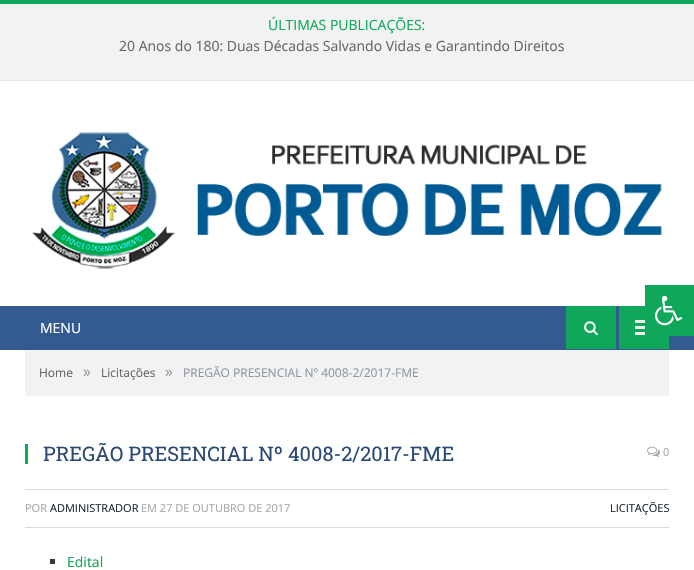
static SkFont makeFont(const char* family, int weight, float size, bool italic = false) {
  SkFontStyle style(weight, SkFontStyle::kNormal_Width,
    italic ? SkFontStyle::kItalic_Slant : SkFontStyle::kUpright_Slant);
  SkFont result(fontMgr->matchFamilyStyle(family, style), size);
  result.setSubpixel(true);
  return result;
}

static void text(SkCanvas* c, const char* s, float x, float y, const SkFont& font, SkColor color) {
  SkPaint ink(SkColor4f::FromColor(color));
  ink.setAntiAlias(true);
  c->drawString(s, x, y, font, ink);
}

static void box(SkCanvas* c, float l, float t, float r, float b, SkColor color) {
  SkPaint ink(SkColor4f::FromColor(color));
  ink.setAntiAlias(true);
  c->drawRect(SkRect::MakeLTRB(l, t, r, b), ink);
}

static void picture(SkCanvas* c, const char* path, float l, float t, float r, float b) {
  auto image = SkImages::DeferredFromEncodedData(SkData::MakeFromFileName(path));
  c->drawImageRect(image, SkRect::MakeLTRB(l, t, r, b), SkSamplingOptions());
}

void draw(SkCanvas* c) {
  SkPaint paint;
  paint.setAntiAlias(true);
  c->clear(0xffffffff);
  box(c, 0, 4, 694, 80, 0xfff2f2f2);
  box(c, 0, 0, 694, 4, 0xff0fa759);
  box(c, 0, 80, 694, 81, 0xffe7e7e7);
  SkFont face1 = makeFont("Open Sans", 400, 14);
  text(c, "ÚLTIMAS PUBLICAÇÕES:", 268, 30, face1, 0xff0fa759);
  text(c, "20 Anos do 180: Duas Décadas Salvando Vidas e Garantindo Direitos", 119, 51, face1, 0xff656565);
  picture(c, "img_01.png", 31, 132, 662, 269);
  box(c, 0, 306, 694, 350, 0xff335b92);
  text(c, "MENU", 40, 333, face1, 0xffffffff);
  box(c, 566, 306, 616, 349, 0xff0fa759);
  picture(c, "img_02.png", 584, 321, 598, 336);
  box(c, 619, 306, 669, 349, 0xff0fa759);
  picture(c, "img_03.png", 635, 320, 645, 335);
  box(c, 25, 350, 669, 396, 0xfff2f2f2);
  SkFont face2 = makeFont("Open Sans", 400, 12);
  text(c, "Home", 39, 377, face2, 0xff656565);
  SkFont face3 = makeFont("Open Sans", 400, 16);
  text(c, "»", 83, 377, face3, 0xff8d97a1);
  text(c, "Licitações", 101, 377, face2, 0xff656565);
  text(c, "»", 165, 377, face3, 0xff8d97a1);
  text(c, "PREGÃO PRESENCIAL Nº 4008-2/2017-FME", 183, 377, face2, 0xff8d97a1);
  box(c, 25, 444, 28, 464, 0xff0fa759);
  SkFont face4 = makeFont("Roboto Slab", 400, 20);
  text(c, "PREGÃO PRESENCIAL Nº 4008-2/2017-FME", 43, 461, face4, 0xff294975);
  picture(c, "img_04.png", 647, 446, 660, 457);
  SkFont face5 = makeFont("Open Sans", 400, 11);
  text(c, "0", 663, 456, face5, 0xffa6a6a6);
  box(c, 25, 489, 669, 490, 0xffd9d9d9);
  box(c, 25, 527, 669, 528, 0xffd9d9d9);
  text(c, "POR", 25, 512, face5, 0xffa6a6a6);
  text(c, "ADMINISTRADOR", 50, 512, face5, 0xff19232d);
  text(c, "EM 27 DE OUTUBRO DE 2017", 141, 512, face5, 0xffa6a6a6);
  text(c, "LICITAÇÕES", 610, 512, face5, 0xff19232d);
  box(c, 50, 559, 55, 564, 0xff383838);
  text(c, "Edital", 67, 567, face1, 0xff0fa759);
  box(c, 645, 285, 694, 336, 0xff0fa759);
  picture(c, "img_05.png", 655, 295, 683, 326);
}
